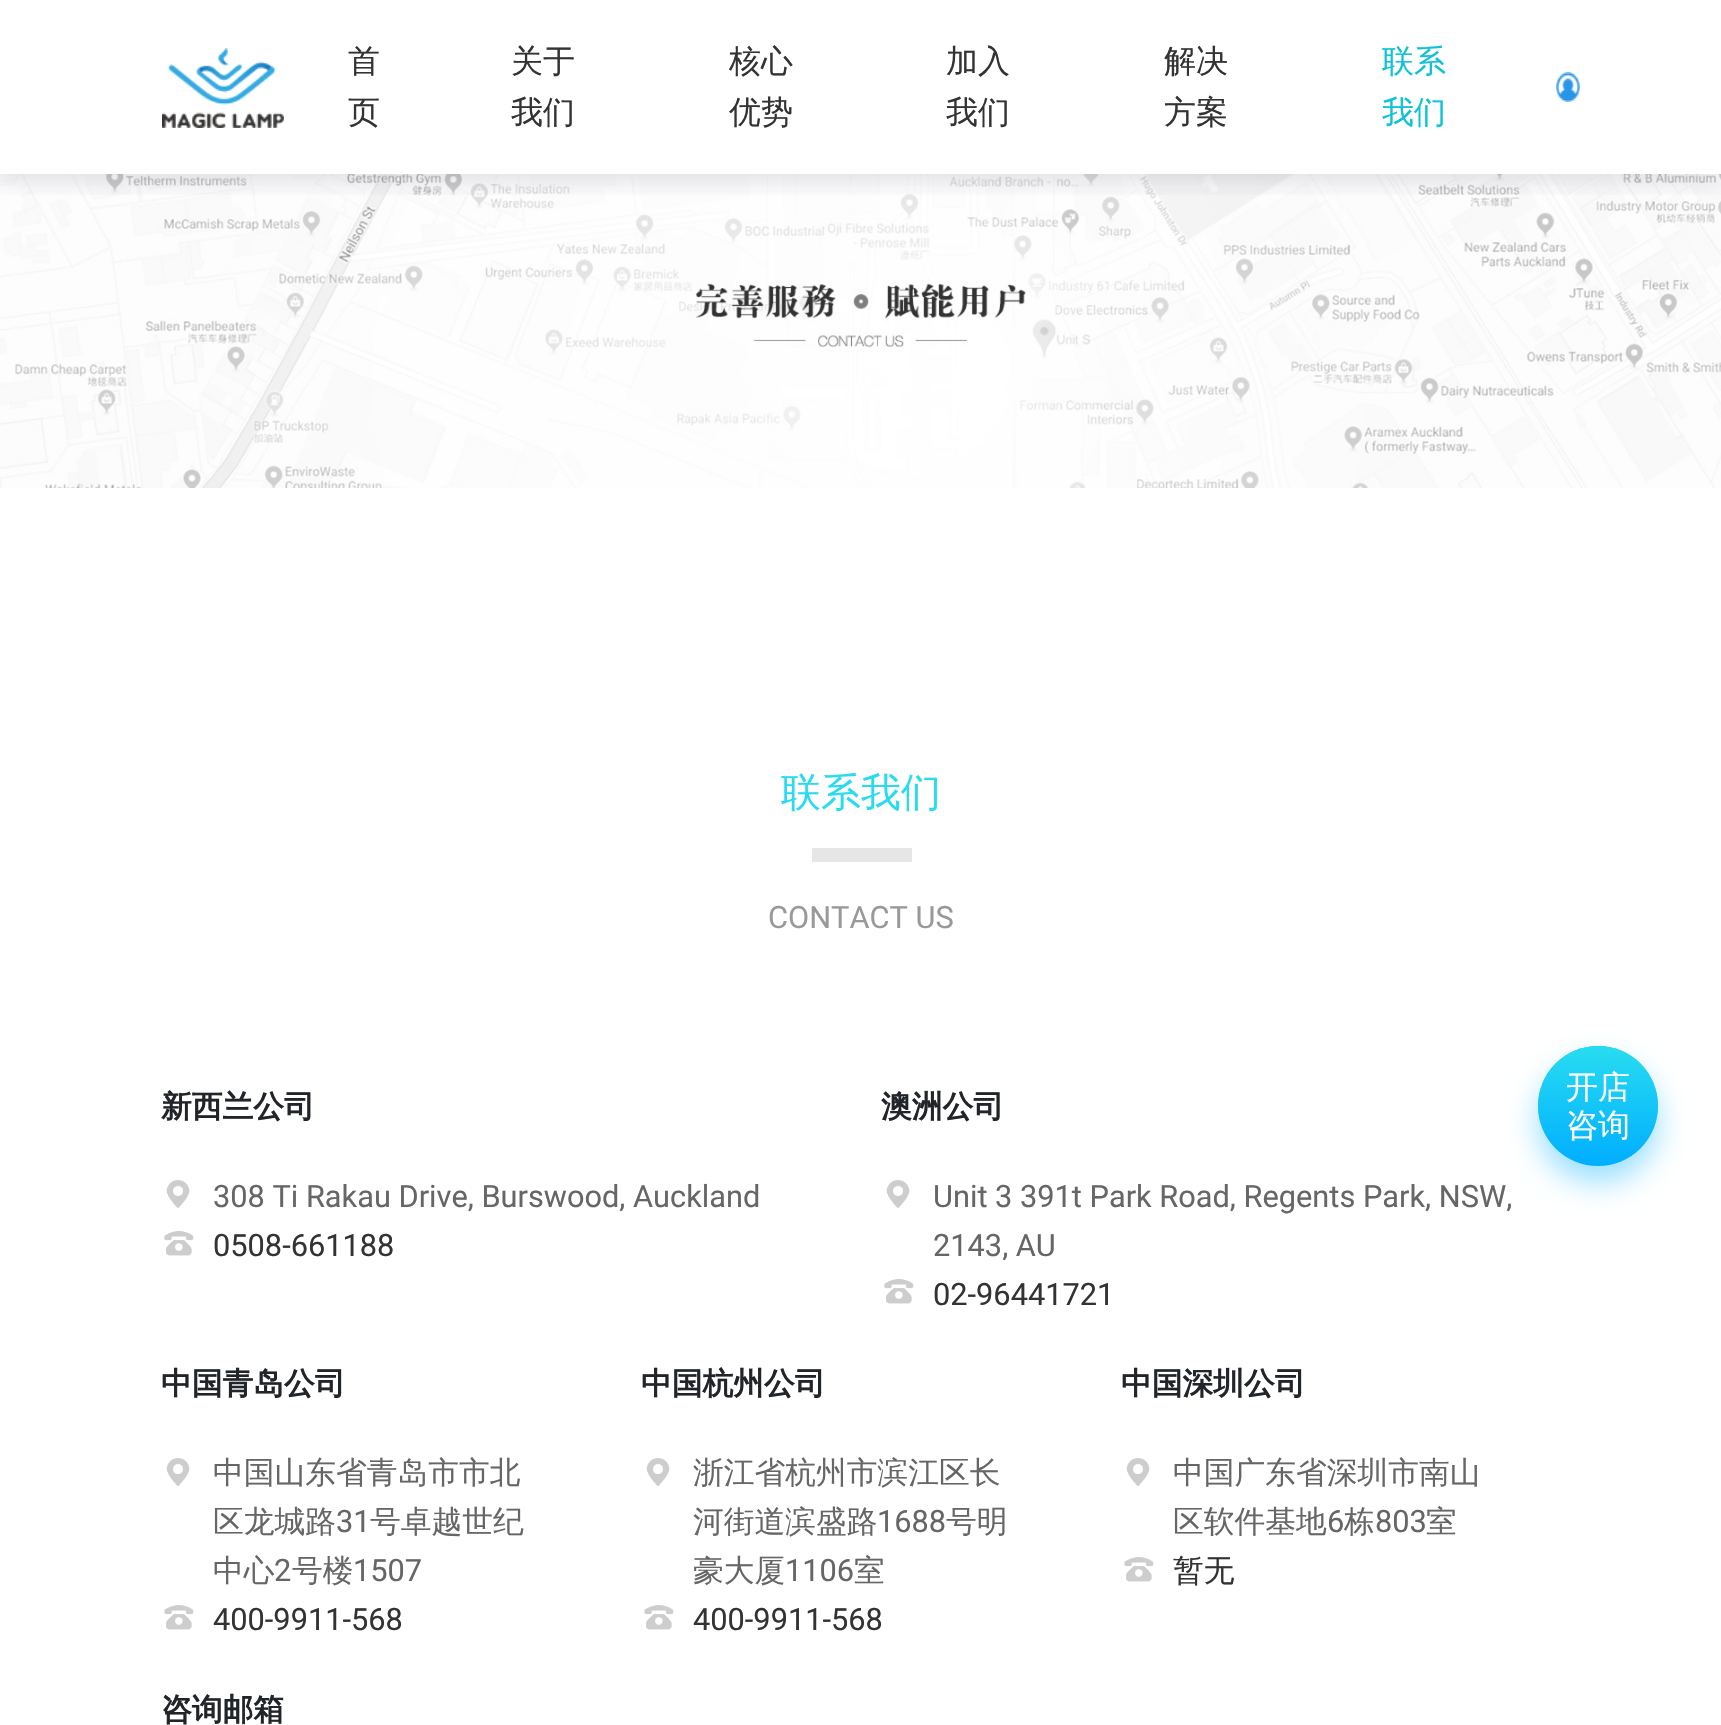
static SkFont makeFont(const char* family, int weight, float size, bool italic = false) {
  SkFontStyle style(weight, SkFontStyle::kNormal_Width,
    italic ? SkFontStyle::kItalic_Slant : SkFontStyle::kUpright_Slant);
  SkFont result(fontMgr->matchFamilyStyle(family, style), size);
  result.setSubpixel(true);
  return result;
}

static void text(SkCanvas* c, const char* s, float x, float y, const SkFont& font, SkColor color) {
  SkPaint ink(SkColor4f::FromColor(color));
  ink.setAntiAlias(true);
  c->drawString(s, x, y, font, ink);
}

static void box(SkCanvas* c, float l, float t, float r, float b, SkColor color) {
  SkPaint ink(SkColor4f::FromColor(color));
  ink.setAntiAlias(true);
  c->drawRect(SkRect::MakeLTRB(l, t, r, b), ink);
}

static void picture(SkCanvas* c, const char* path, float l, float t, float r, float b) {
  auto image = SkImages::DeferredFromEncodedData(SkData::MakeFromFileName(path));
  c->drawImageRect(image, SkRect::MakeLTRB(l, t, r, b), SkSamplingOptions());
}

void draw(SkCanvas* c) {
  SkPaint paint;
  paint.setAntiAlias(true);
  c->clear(0xffffffff);
  picture(c, "img_03.png", 0, 174, 1721, 488);
  c->save();
  c->clipRect(SkRect::MakeLTRB(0, 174, 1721, 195));
  paint.setColor(0x3332325d);
  paint.setMaskFilter(SkMaskFilter::MakeBlur(kNormal_SkBlurStyle, 15));
  c->drawRect(SkRect::MakeLTRB(0, 2, 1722, 176), paint);
  paint.setMaskFilter(nullptr);
  c->restore();
  picture(c, "img_01.png", 162, 48, 284, 128);
  SkFont face1 = makeFont("WenQuanYi Zen Hei", 500, 32);
  text(c, "首", 348, 72, face1, 0xff333333);
  text(c, "页", 348, 123, face1, 0xff333333);
  text(c, "关于", 511, 72, face1, 0xff333333);
  text(c, "我们", 511, 123, face1, 0xff333333);
  text(c, "核心", 729, 72, face1, 0xff333333);
  text(c, "优势", 729, 123, face1, 0xff333333);
  text(c, "加入", 946, 72, face1, 0xff333333);
  text(c, "我们", 946, 123, face1, 0xff333333);
  text(c, "解决", 1164, 72, face1, 0xff333333);
  text(c, "方案", 1164, 123, face1, 0xff333333);
  text(c, "联系", 1382, 72, face1, 0xff0fc2d6);
  text(c, "我们", 1382, 123, face1, 0xff0fc2d6);
  picture(c, "img_02.png", 1556, 72, 1580, 102);
  SkFont face2 = makeFont("WenQuanYi Zen Hei", 500, 40);
  text(c, "联系我们", 781, 806, face2, 0xff28dcf0);
  box(c, 812, 848, 912, 862, 0xffe6e6e6);
  SkFont face3 = makeFont("Roboto", 400, 30.75f);
  text(c, "CONTACT US", 768, 928, face3, 0xff999999);
  SkFont face4 = makeFont("WenQuanYi Zen Hei", 700, 30.75f);
  text(c, "新西兰公司", 161, 1117, face4, 0xff212529);
  picture(c, "img_04.png", 166, 1180, 190, 1208);
  text(c, "308 Ti Rakau Drive, Burswood, Auckland", 213, 1207, face3, 0xff666666);
  picture(c, "img_05.png", 164, 1231, 194, 1256);
  text(c, "0508-661188", 213, 1256, face3, 0xff333333);
  text(c, "澳洲公司", 881, 1117, face4, 0xff212529);
  picture(c, "img_04.png", 886, 1180, 910, 1208);
  text(c, "Unit 3 391t Park Road, Regents Park, NSW,", 933, 1207, face3, 0xff666666);
  text(c, "2143, AU", 933, 1256, face3, 0xff666666);
  picture(c, "img_05.png", 884, 1279, 914, 1304);
  text(c, "02-96441721", 933, 1305, face3, 0xff333333);
  text(c, "中国青岛公司", 161, 1394, face4, 0xff212529);
  picture(c, "img_04.png", 166, 1458, 190, 1486);
  SkFont face5 = makeFont("WenQuanYi Zen Hei", 500, 30.75f);
  text(c, "中国山东省青岛市市北", 213, 1483, face5, 0xff666666);
  text(c, "区龙城路", 213, 1532, face5, 0xff666666);
  text(c, "31", 336, 1532, face3, 0xff666666);
  text(c, "号卓越世纪", 370, 1532, face5, 0xff666666);
  text(c, "中心", 213, 1581, face5, 0xff666666);
  text(c, "2", 274, 1581, face3, 0xff666666);
  text(c, "号楼", 292, 1581, face5, 0xff666666);
  text(c, "1507", 353, 1581, face3, 0xff666666);
  picture(c, "img_05.png", 164, 1605, 194, 1630);
  text(c, "400-9911-568", 213, 1630, face3, 0xff333333);
  text(c, "中国杭州公司", 641, 1394, face4, 0xff212529);
  picture(c, "img_04.png", 646, 1458, 670, 1486);
  text(c, "浙江省杭州市滨江区长", 693, 1483, face5, 0xff666666);
  text(c, "河街道滨盛路", 693, 1532, face5, 0xff666666);
  text(c, "1688", 877, 1532, face3, 0xff666666);
  text(c, "号明", 946, 1532, face5, 0xff666666);
  text(c, "豪大厦", 693, 1581, face5, 0xff666666);
  text(c, "1106", 785, 1581, face3, 0xff666666);
  text(c, "室", 854, 1581, face5, 0xff666666);
  picture(c, "img_05.png", 644, 1605, 674, 1630);
  text(c, "400-9911-568", 693, 1630, face3, 0xff333333);
  text(c, "中国深圳公司", 1121, 1394, face4, 0xff212529);
  picture(c, "img_04.png", 1126, 1458, 1150, 1486);
  text(c, "中国广东省深圳市南山", 1173, 1483, face5, 0xff666666);
  text(c, "区软件基地", 1173, 1532, face5, 0xff666666);
  text(c, "6", 1327, 1532, face3, 0xff666666);
  text(c, "栋", 1344, 1532, face5, 0xff666666);
  text(c, "803", 1375, 1532, face3, 0xff666666);
  text(c, "室", 1426, 1532, face5, 0xff666666);
  picture(c, "img_05.png", 1124, 1557, 1154, 1582);
  text(c, "暂无", 1173, 1581, face5, 0xff333333);
  text(c, "咨询邮箱", 161, 1720, face4, 0xff212529);
  paint.setColor(0x6600aeff);
  paint.setMaskFilter(SkMaskFilter::MakeBlur(kNormal_SkBlurStyle, 15));
  c->drawRoundRect(SkRect::MakeLTRB(1538, 1062, 1658, 1182), 60, 60, paint);
  paint.setMaskFilter(nullptr);
  paint.setColor(0xff00aeff);
  c->drawCircle(1598, 1106, 60, paint);
  {
    const SkColor colors[] = {0x0028dcf0, 0xff28dcf0};
    const float stops[] = {0, 1};
    const SkPoint ends[] = {{1598, 1166}, {1598, 1046}};
    paint.setShader(SkGradientShader::MakeLinear(ends, colors, stops, 2, SkTileMode::kClamp));
    paint.setAlpha(255);
  }
  c->drawCircle(1598, 1106, 60, paint);
  text(c, "开店", 1566, 1098, face1, 0xffffffff);
  text(c, "咨询", 1566, 1136, face1, 0xffffffff);
}
